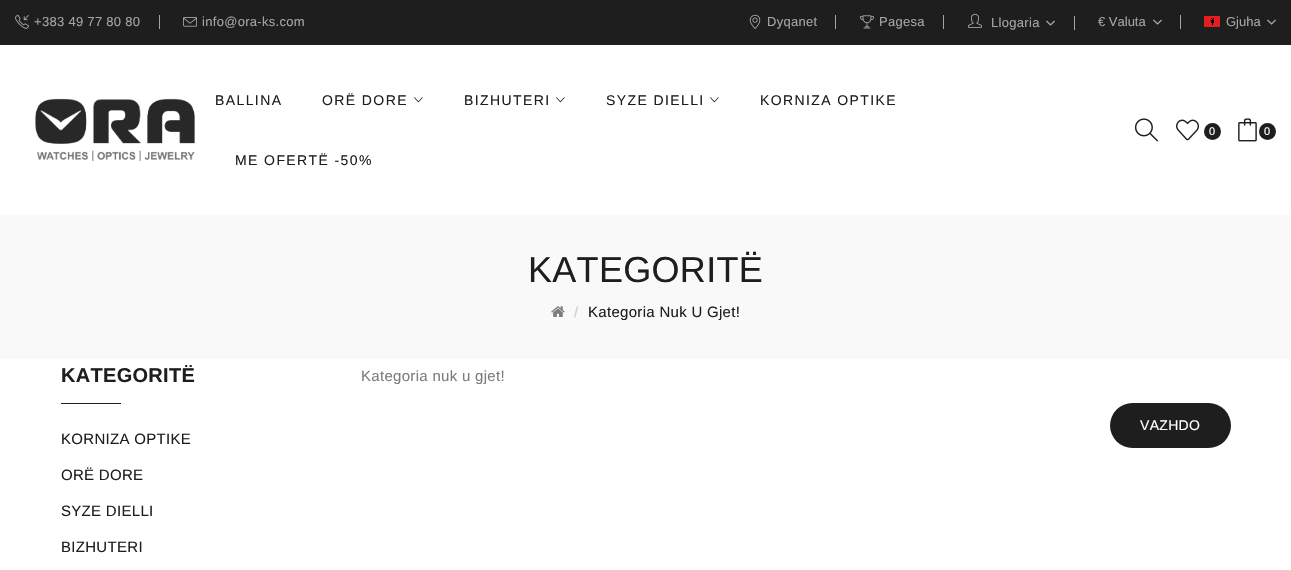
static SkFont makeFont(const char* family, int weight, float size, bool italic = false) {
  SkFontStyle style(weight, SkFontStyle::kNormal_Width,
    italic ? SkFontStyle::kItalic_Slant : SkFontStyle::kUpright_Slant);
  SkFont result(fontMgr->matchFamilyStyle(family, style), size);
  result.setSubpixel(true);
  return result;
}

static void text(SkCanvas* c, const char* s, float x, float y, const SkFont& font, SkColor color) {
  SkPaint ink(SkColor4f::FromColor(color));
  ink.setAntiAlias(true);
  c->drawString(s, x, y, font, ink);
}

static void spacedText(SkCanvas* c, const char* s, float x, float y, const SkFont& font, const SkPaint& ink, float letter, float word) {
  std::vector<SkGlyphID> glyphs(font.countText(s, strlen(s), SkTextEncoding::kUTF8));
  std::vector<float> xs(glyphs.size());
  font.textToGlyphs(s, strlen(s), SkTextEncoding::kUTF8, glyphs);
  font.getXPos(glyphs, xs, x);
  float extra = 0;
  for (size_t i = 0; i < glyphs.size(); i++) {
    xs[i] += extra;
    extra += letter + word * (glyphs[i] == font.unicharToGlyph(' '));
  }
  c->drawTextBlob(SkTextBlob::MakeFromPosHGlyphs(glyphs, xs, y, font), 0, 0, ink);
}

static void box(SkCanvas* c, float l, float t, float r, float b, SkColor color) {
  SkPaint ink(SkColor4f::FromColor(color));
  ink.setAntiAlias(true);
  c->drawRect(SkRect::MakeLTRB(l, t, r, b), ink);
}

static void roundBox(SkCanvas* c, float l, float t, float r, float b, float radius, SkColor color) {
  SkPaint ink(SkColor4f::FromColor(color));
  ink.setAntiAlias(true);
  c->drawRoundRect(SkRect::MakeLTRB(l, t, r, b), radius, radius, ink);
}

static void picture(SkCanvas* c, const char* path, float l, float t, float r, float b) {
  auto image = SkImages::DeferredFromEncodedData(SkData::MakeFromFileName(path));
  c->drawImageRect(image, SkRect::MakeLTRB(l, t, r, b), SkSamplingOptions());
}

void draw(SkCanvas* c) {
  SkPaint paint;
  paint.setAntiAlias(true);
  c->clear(0xffffffff);
  box(c, 0, 0, 1291, 45, 0xff1e1e1f);
  picture(c, "img_01.png", 15, 14, 29, 29);
  SkFont face1 = makeFont("Liberation Sans", 400, 13);
  paint.setColor(0xffa5a5a5);
  spacedText(c, "+383 49 77 80 80", 34, 26, face1, paint, 0.3f, 0);
  box(c, 159, 15, 160, 29, 0xffa5a5a5);
  picture(c, "img_02.png", 183, 17, 197, 27);
  spacedText(c, "info@ora-ks.com", 202, 26, face1, paint, 0.3f, 0);
  picture(c, "img_03.png", 749, 14, 761, 29);
  spacedText(c, "Dyqanet", 767, 26, face1, paint, 0.3f, 0);
  box(c, 835, 15, 836, 29, 0xffa5a5a5);
  picture(c, "img_04.png", 860, 15, 874, 29);
  spacedText(c, "Pagesa", 879, 26, face1, paint, 0.3f, 0);
  box(c, 943, 15, 944, 29, 0xffa5a5a5);
  picture(c, "img_05.png", 968, 13, 982, 28);
  spacedText(c, "Llogaria", 991, 27, face1, paint, 0.3f, 0);
  picture(c, "img_06.png", 1046, 20, 1055, 26);
  box(c, 1074, 16, 1075, 30, 0xffa5a5a5);
  text(c, "€ Valuta", 1098, 26, face1, 0xffa5a5a5);
  picture(c, "img_06.png", 1153, 19, 1162, 25);
  box(c, 1180, 15, 1181, 29, 0xffa5a5a5);
  picture(c, "img_07.png", 1204, 16, 1220, 27);
  text(c, "Gjuha", 1226, 26, face1, 0xffa5a5a5);
  picture(c, "img_06.png", 1267, 19, 1276, 25);
  picture(c, "img_08.png", 35, 98, 195, 162);
  SkFont face2 = makeFont("Liberation Sans", 400, 14);
  paint.setColor(0xff1e1e1f);
  spacedText(c, "BALLINA", 215, 105, face2, paint, 1.4f, 0);
  spacedText(c, "ORË DORE", 322, 105, face2, paint, 1.4f, 0);
  picture(c, "img_09.png", 414, 97, 423, 103);
  spacedText(c, "BIZHUTERI", 464, 105, face2, paint, 1.4f, 0);
  picture(c, "img_09.png", 556, 97, 565, 103);
  spacedText(c, "SYZE DIELLI", 606, 105, face2, paint, 1.4f, 0);
  picture(c, "img_09.png", 710, 97, 719, 103);
  spacedText(c, "KORNIZA OPTIKE", 760, 105, face2, paint, 1.4f, 0);
  spacedText(c, "ME OFERTË -50%", 235, 165, face2, paint, 1.4f, 0);
  picture(c, "img_10.png", 1134, 118, 1158, 142);
  picture(c, "img_11.png", 1176, 119, 1199, 141);
  c->drawCircle(1212.5f, 131.5f, 8.5f, paint);
  SkFont face3 = makeFont("Liberation Sans", 400, 11);
  paint.setColor(0xffffffff);
  spacedText(c, "0", 1209, 135, face3, paint, 0.3f, 0);
  picture(c, "img_12.png", 1238, 118, 1257, 142);
  paint.setColor(0xff1e1e1f);
  c->drawCircle(1267.5f, 131.5f, 8.5f, paint);
  text(c, "0", 1264, 135, face3, 0xffffffff);
  box(c, 0, 215, 1291, 359, 0xfff9f9f9);
  SkFont face4 = makeFont("Liberation Sans", 400, 36);
  spacedText(c, "KATEGORITË", 528, 282, face4, paint, 0.3f, 0);
  picture(c, "img_13.png", 551, 306, 565, 317);
  SkFont face5 = makeFont("Liberation Sans", 400, 15);
  paint.setColor(0xffcccccc);
  spacedText(c, "/", 574, 317, face5, paint, 0.3f, 0);
  paint.setColor(0xff1e1e1f);
  spacedText(c, "Kategoria Nuk U Gjet!", 588, 317, face5, paint, 0.3f, 0);
  SkFont face6 = makeFont("Liberation Sans", 700, 20);
  spacedText(c, "KATEGORITË", 61, 382, face6, paint, 0.3f, 0);
  box(c, 61, 403, 121, 404, 0xff1e1e1f);
  spacedText(c, "KORNIZA OPTIKE", 61, 444, face5, paint, 0.3f, 0);
  spacedText(c, "ORË DORE", 61, 480, face5, paint, 0.3f, 0);
  spacedText(c, "SYZE DIELLI", 61, 516, face5, paint, 0.3f, 0);
  spacedText(c, "BIZHUTERI", 61, 552, face5, paint, 0.3f, 0);
  paint.setColor(0xff7d7d7d);
  spacedText(c, "Kategoria nuk u gjet!", 361, 381, face5, paint, 0.3f, 0);
  roundBox(c, 1110, 403, 1231, 448, 22.5f, 0xff1e1e1f);
  paint.setColor(0xffffffff);
  spacedText(c, "VAZHDO", 1140, 430, face2, paint, 0.3f, 0);
}
